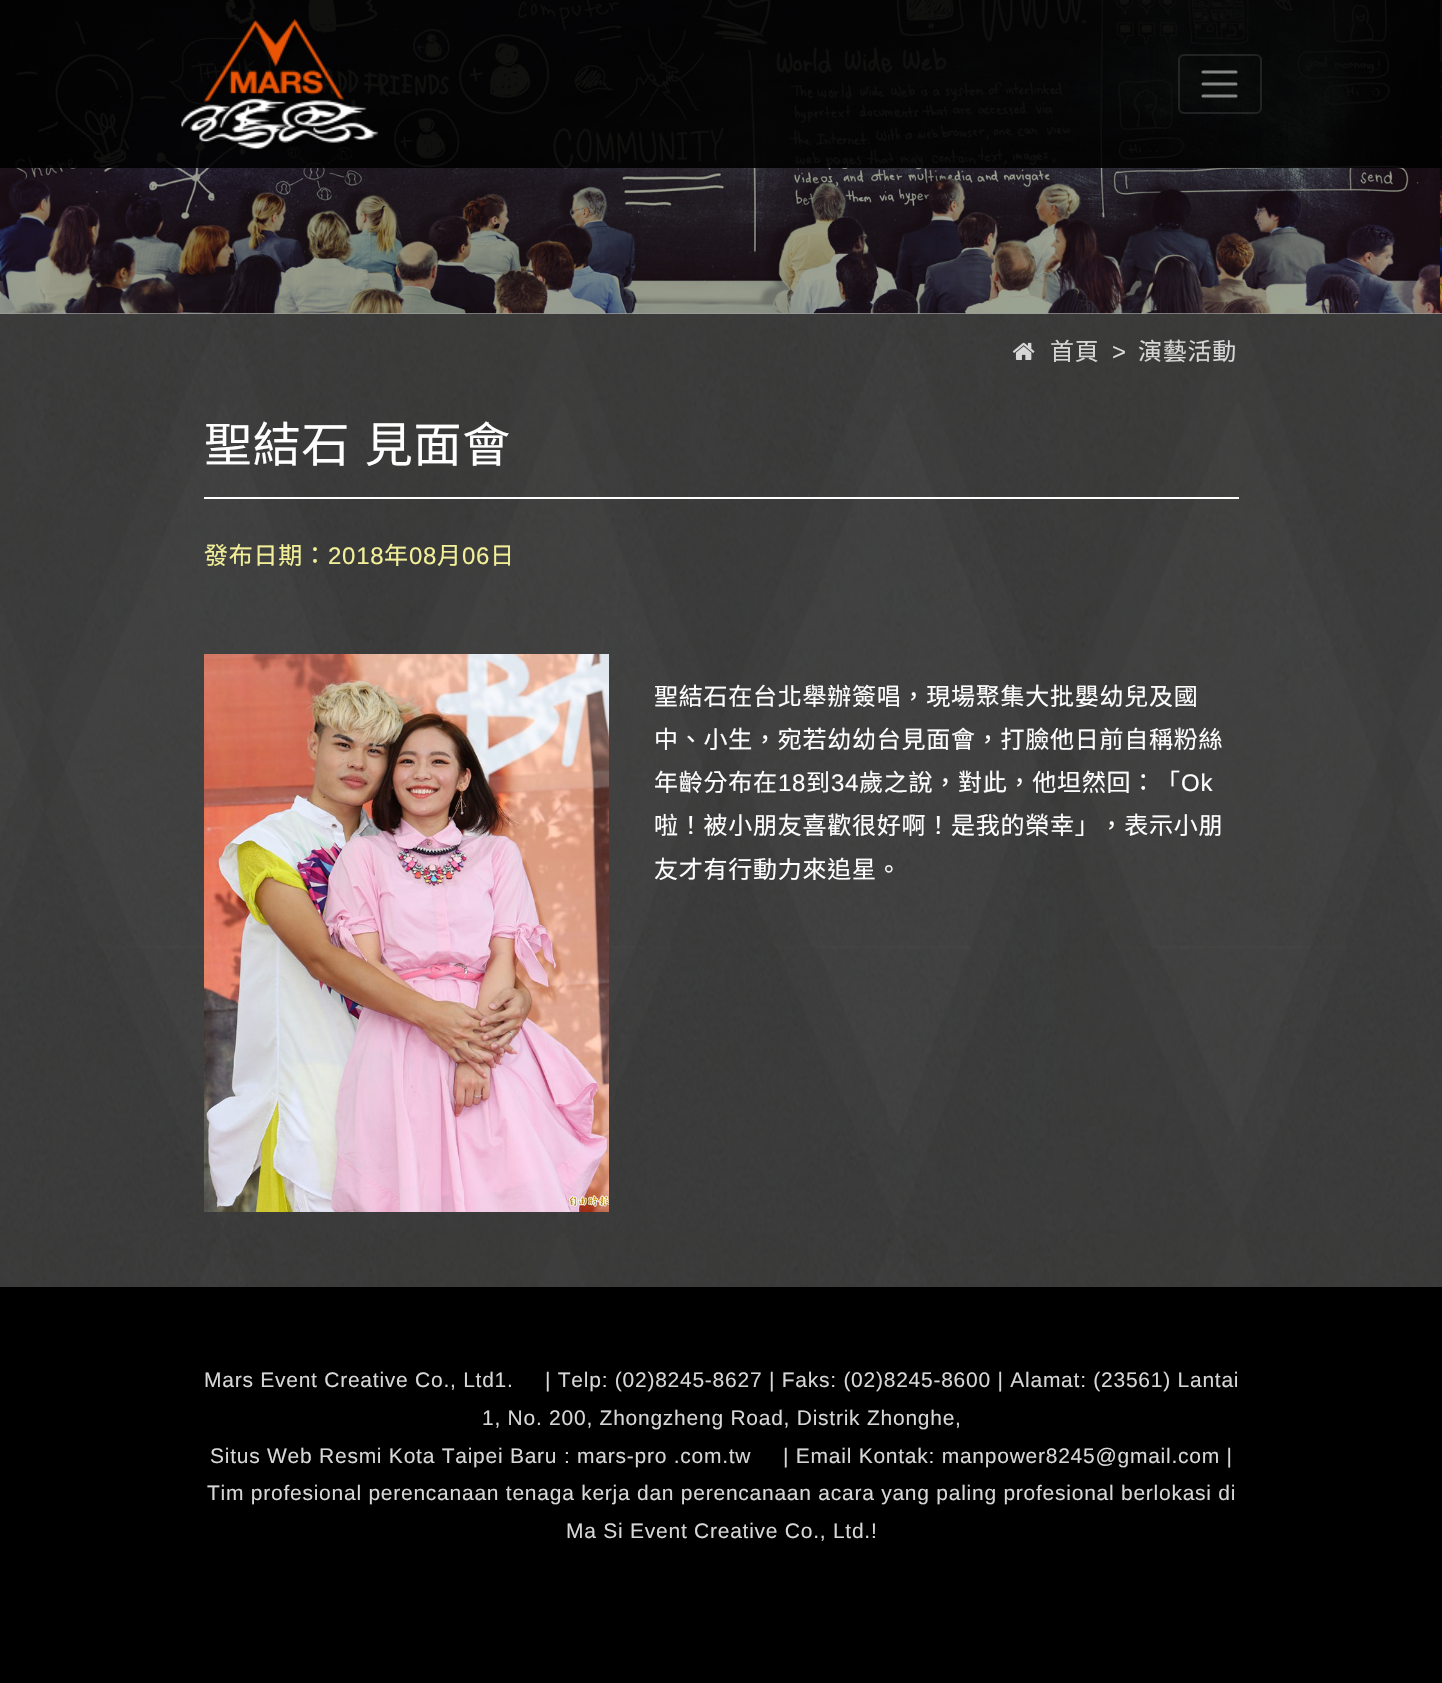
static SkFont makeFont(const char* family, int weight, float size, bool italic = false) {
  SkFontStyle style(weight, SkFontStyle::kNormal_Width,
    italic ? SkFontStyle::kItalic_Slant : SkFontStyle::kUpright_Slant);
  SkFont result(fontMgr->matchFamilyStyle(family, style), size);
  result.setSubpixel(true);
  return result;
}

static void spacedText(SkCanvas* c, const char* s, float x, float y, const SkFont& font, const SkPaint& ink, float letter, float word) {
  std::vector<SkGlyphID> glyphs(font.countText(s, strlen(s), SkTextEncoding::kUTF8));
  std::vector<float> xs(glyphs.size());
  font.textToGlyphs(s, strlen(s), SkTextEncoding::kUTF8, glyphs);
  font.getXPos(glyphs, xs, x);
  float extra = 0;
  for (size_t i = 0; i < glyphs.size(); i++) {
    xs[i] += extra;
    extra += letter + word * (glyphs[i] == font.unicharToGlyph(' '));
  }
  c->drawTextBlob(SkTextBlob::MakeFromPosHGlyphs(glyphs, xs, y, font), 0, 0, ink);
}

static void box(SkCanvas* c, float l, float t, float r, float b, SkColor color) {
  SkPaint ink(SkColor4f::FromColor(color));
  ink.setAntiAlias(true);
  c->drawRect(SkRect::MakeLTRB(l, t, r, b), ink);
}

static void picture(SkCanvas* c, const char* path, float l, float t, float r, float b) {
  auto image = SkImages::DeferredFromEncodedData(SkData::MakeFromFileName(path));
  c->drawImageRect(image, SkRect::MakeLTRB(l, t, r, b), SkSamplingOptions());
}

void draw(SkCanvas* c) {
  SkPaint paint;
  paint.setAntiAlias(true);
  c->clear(0xffffffff);
  picture(c, "img_03.png", 0, 313, 1442, 1287);
  picture(c, "img_01.png", 0, 0, 1442, 314);
  box(c, 0, 0, 1442, 168, 0xe6000000);
  picture(c, "img_02.png", 181, 19, 378, 149);
  paint.setStyle(SkPaint::kStroke_Style);
  paint.setStrokeWidth(2);
  paint.setColor(0x1affffff);
  c->drawRoundRect(SkRect::MakeLTRB(1179, 55, 1261, 113), 5, 5, paint);
  paint.setStrokeWidth(3);
  paint.setStrokeCap(SkPaint::kRound_Cap);
  paint.setColor(0x80ffffff);
  c->drawPath(SkPathBuilder().moveTo(1203, 72).lineTo(1236, 72).moveTo(1203, 84).lineTo(1236, 84).moveTo(1203, 96).lineTo(1236, 96).detach(), paint);
  picture(c, "img_04.png", 1012, 342, 1035, 360);
  SkFont face1 = makeFont("Noto Sans CJK TC", 400, 24);
  paint.setStyle(SkPaint::kFill_Style);
  paint.setColor(0xffd8d7d7);
  spacedText(c, "首頁", 1050, 360, face1, paint, 0.75f, 0);
  SkFont face2 = makeFont("Liberation Sans", 400, 24);
  paint.setColor(0xffdddddd);
  spacedText(c, ">", 1112, 360, face2, paint, 0.75f, 0);
  paint.setColor(0xffd8d7d7);
  spacedText(c, "演藝活動", 1138, 360, face1, paint, 0.75f, 0);
  box(c, 204, 497, 1239, 499, 0xffffffff);
  SkFont face3 = makeFont("Noto Sans CJK TC", 400, 48);
  paint.setColor(0xffffffff);
  spacedText(c, "聖結石 見面會", 204, 462, face3, paint, 0.75f, 3);
  paint.setColor(0xfff3f099);
  spacedText(c, "發布日期：", 204, 564, face1, paint, 0.75f, 0);
  spacedText(c, "2018", 328, 564, face2, paint, 0.75f, 0);
  spacedText(c, "年", 384, 564, face1, paint, 0.75f, 0);
  spacedText(c, "08", 409, 564, face2, paint, 0.75f, 0);
  spacedText(c, "月", 437, 564, face1, paint, 0.75f, 0);
  spacedText(c, "06", 462, 564, face2, paint, 0.75f, 0);
  spacedText(c, "日", 490, 564, face1, paint, 0.75f, 0);
  picture(c, "img_05.png", 204, 654, 609, 1212);
  paint.setColor(0xffffffff);
  spacedText(c, "聖結石在台北舉辦簽唱，現場聚集大批嬰幼兒及國", 654, 705, face1, paint, 0.75f, 0);
  spacedText(c, "中、小生，宛若幼幼台見面會，打臉他日前自稱粉絲", 654, 748, face1, paint, 0.75f, 0);
  spacedText(c, "年齡分布在", 654, 791, face1, paint, 0.75f, 0);
  spacedText(c, "18", 778, 791, face2, paint, 0.75f, 0);
  spacedText(c, "到", 806, 791, face1, paint, 0.75f, 0);
  spacedText(c, "34", 831, 791, face2, paint, 0.75f, 0);
  spacedText(c, "歲之說，對此，他坦然回：「", 859, 791, face1, paint, 0.75f, 0);
  spacedText(c, "Ok", 1181, 791, face2, paint, 0.75f, 0);
  spacedText(c, "啦！被小朋友喜歡很好啊！是我的榮幸」，表示小朋", 654, 834, face1, paint, 0.75f, 0);
  spacedText(c, "友才有行動力來追星。", 654, 878, face1, paint, 0.75f, 0);
  box(c, 0, 1287, 1442, 1683, 0xff000000);
  SkFont face4 = makeFont("Liberation Sans", 400, 21);
  paint.setColor(0xffd8d7d7);
  spacedText(c, "Mars Event Creative Co., Ltd1.", 204, 1387, face4, paint, 0.75f, 0);
  spacedText(c, "| Telp: (02)8245-8627 | Faks: (02)8245-8600 | Alamat: (23561) Lantai", 545, 1387, face4, paint, 0.75f, 0);
  spacedText(c, "1, No. 200, Zhongzheng Road, Distrik Zhonghe,", 482, 1425, face4, paint, 0.75f, 0);
  spacedText(c, "Situs Web Resmi Kota Taipei Baru : mars-pro .com.tw", 210, 1463, face4, paint, 0.75f, 0);
  spacedText(c, "| Email Kontak: manpower8245@gmail.com |", 783, 1463, face4, paint, 0.75f, 0);
  spacedText(c, "Tim profesional perencanaan tenaga kerja dan perencanaan acara yang paling profesional berlokasi di", 207, 1500, face4, paint, 0.75f, 0);
  spacedText(c, "Ma Si Event Creative Co., Ltd.!", 566, 1538, face4, paint, 0.75f, 0);
}
